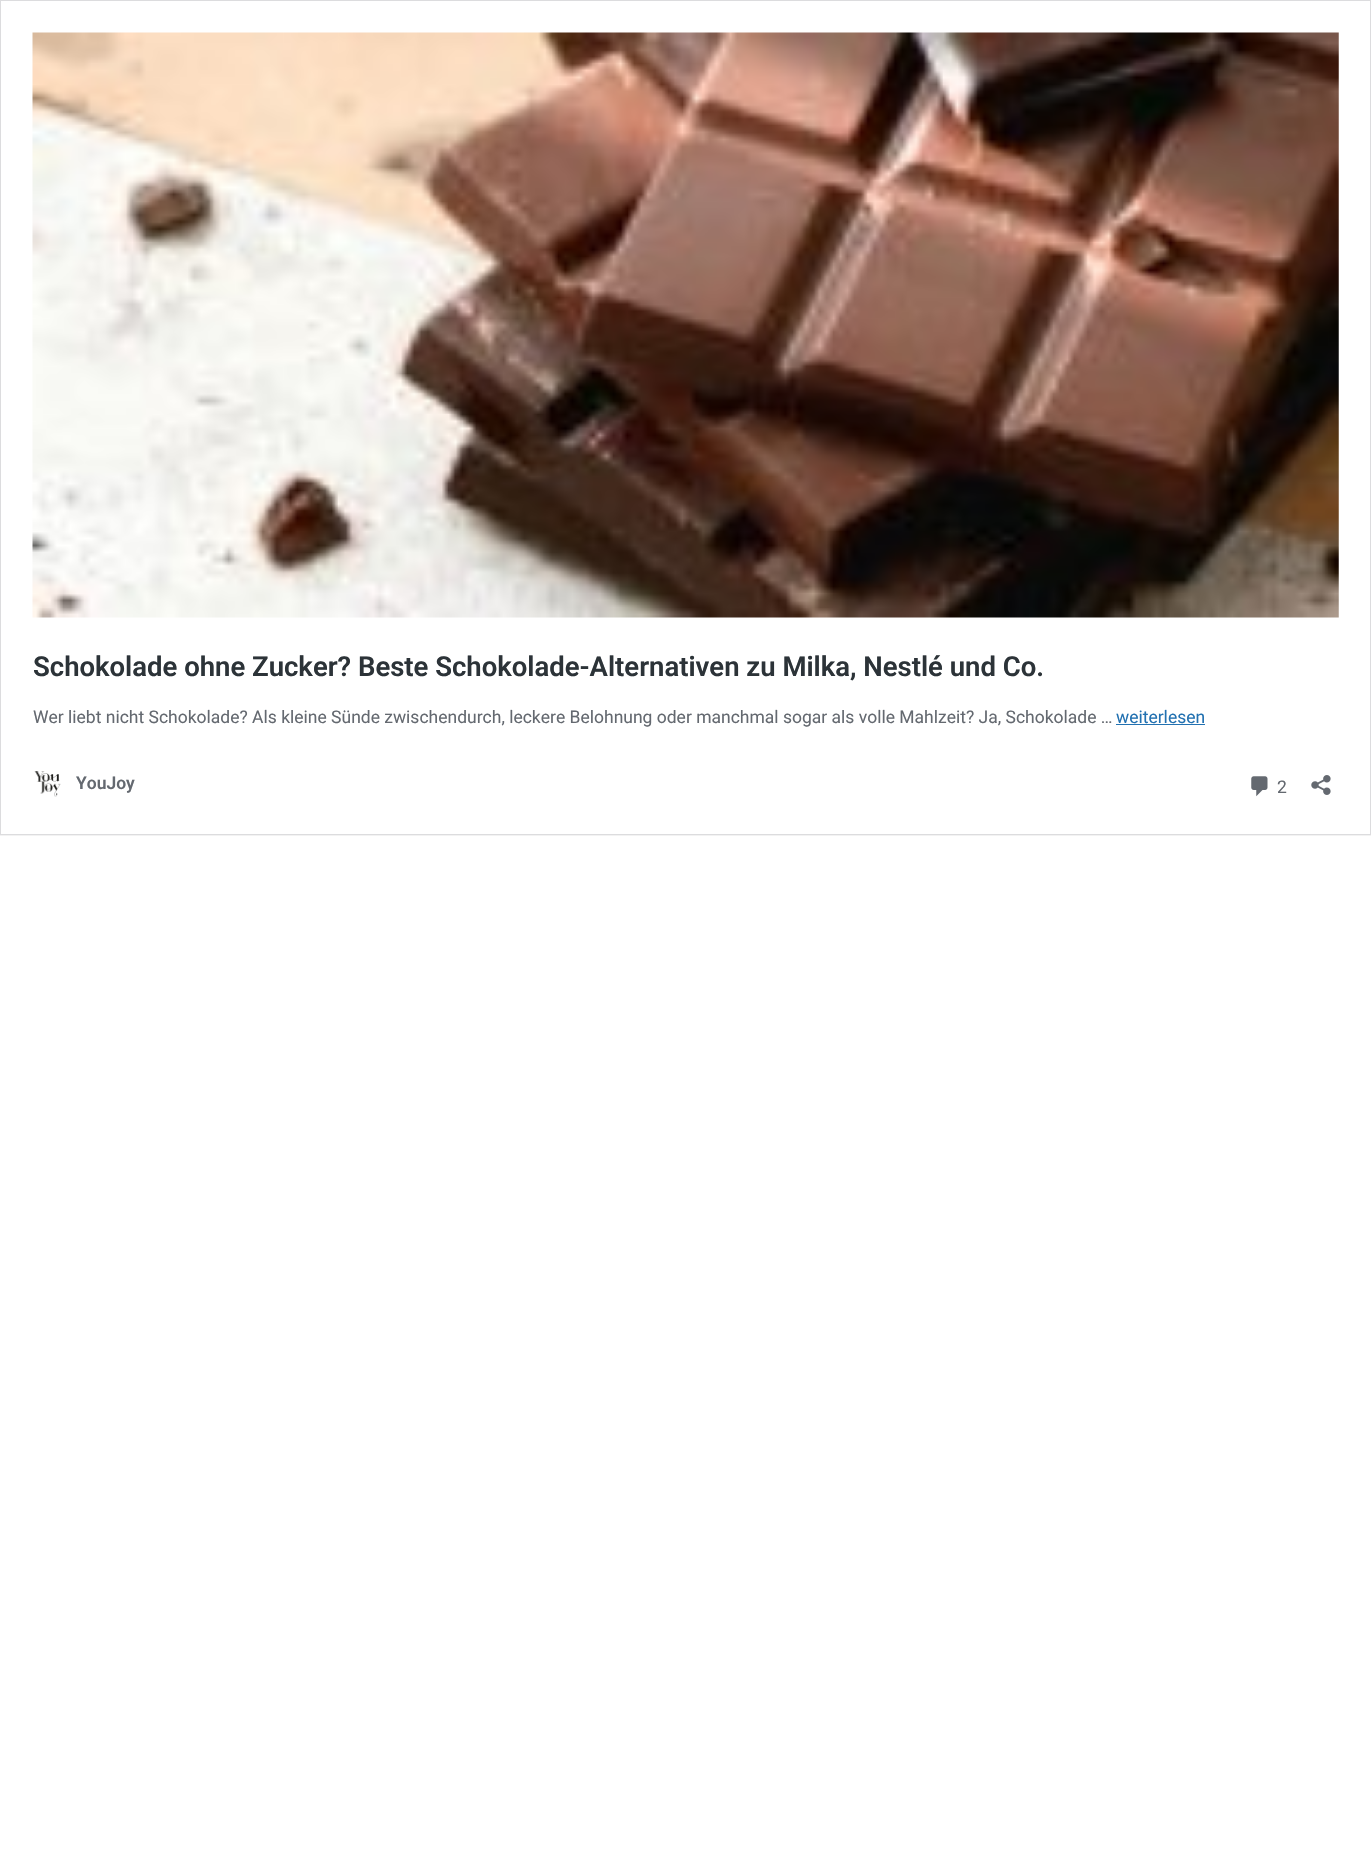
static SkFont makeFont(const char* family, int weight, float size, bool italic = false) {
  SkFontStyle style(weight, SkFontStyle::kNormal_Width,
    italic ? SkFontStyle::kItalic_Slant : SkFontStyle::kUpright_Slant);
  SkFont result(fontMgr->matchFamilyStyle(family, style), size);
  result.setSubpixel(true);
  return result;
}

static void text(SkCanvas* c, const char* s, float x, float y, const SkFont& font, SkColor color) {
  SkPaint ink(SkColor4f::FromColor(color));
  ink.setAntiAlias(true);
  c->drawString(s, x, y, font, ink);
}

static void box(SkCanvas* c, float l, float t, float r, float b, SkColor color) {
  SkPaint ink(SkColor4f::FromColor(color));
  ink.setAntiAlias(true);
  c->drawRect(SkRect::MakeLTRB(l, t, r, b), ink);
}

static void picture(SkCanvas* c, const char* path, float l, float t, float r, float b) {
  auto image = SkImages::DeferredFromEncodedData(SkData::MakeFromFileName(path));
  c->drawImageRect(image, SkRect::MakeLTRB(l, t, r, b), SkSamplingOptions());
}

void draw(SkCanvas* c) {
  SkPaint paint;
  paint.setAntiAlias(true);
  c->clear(0xffffffff);
  c->save();
  c->clipRect(SkRect::MakeLTRB(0, 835, 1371, 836));
  paint.setColor(0x0d000000);
  paint.setMaskFilter(SkMaskFilter::MakeBlur(kNormal_SkBlurStyle, 0.5f));
  c->drawRect(SkRect::MakeLTRB(0, 1, 1371, 836), paint);
  paint.setMaskFilter(nullptr);
  c->restore();
  paint.setStyle(SkPaint::kStroke_Style);
  paint.setStrokeWidth(1);
  paint.setColor(0xffdcdcde);
  c->drawRect(SkRect::MakeLTRB(0.5f, 0.5f, 1370.5f, 834.5f), paint);
  picture(c, "img_01.png", 32, 32, 1339, 618);
  SkFont face1 = makeFont("Roboto", 600, 27.5f);
  text(c, "Schokolade ohne Zucker? Beste Schokolade-Alternativen zu Milka, Nestlé und Co.", 33, 676, face1, 0xff2c3338);
  SkFont face2 = makeFont("Roboto", 400, 17.5f);
  text(c, "Wer liebt nicht Schokolade? Als kleine Sünde zwischendurch, leckere Belohnung oder manchmal sogar als volle Mahlzeit? Ja, Schokolade …", 33, 723, face2, 0xff646970);
  text(c, "weiterlesen", 1116, 723, face2, 0xff2271b1);
  box(c, 1116, 724, 1205, 725, 0xff2271b1);
  picture(c, "img_02.png", 34, 771, 61, 797);
  SkFont face3 = makeFont("Roboto", 600, 17.5f);
  text(c, "YouJoy", 76, 789, face3, 0xff646970);
  picture(c, "img_03.png", 1251, 776, 1268, 797);
  text(c, "2", 1277, 793, face2, 0xff646970);
  picture(c, "img_04.png", 1311, 775, 1331, 795);
}
